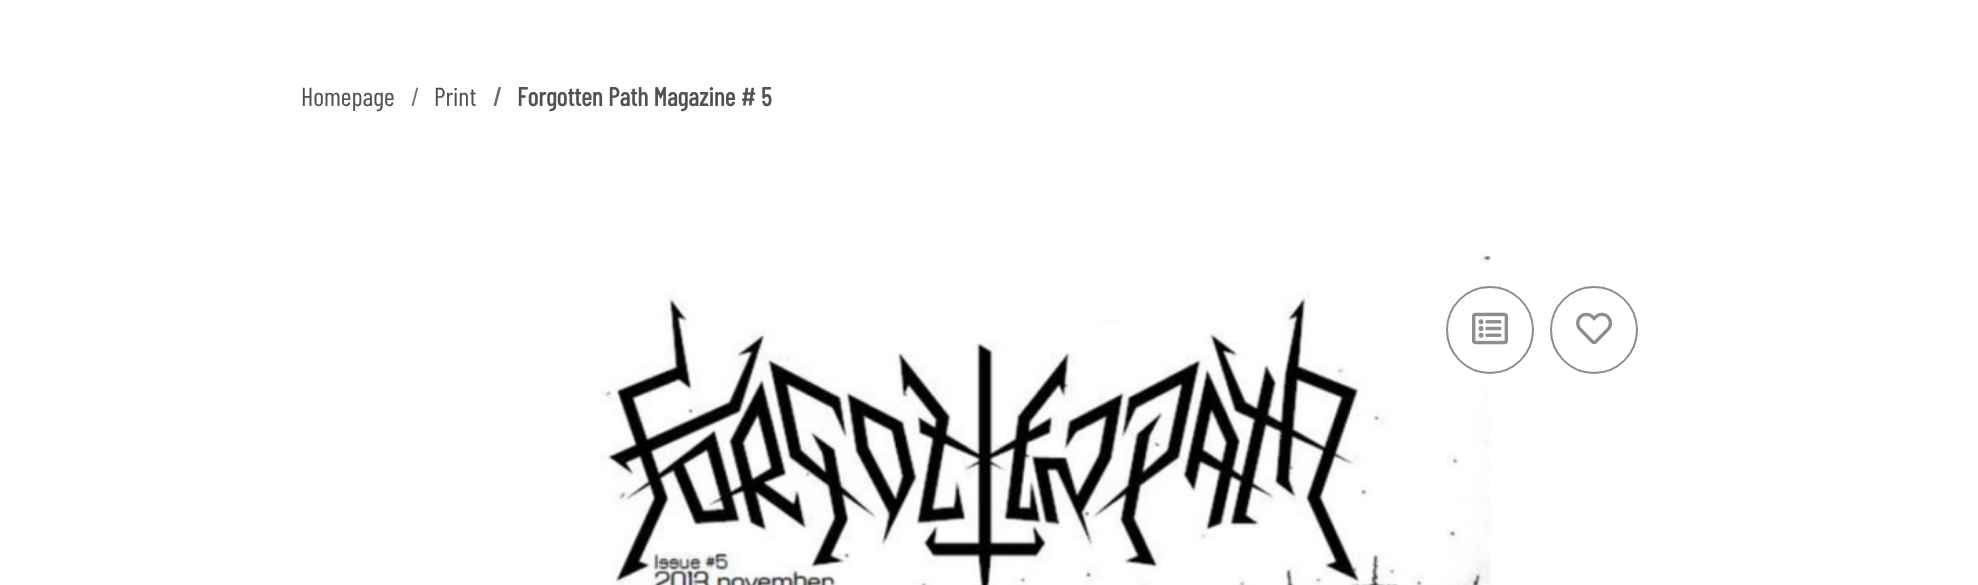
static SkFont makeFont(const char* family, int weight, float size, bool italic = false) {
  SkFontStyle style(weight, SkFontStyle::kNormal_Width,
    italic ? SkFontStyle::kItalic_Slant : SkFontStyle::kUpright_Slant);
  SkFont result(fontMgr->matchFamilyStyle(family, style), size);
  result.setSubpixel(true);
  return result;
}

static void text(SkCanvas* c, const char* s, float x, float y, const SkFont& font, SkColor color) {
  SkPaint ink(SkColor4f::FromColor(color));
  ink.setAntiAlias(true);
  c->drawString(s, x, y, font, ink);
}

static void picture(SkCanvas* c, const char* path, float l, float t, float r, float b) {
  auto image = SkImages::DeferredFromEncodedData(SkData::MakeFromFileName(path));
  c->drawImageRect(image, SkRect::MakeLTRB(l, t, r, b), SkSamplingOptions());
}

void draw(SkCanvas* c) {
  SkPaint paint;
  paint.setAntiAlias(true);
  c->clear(0xffffffff);
  SkFont face1 = makeFont("Barlow Condensed", 400, 26);
  text(c, "Homepage", 301, 106, face1, 0xff525252);
  text(c, "/", 411, 106, face1, 0xff707070);
  text(c, "Print", 434, 106, face1, 0xff525252);
  SkFont face2 = makeFont("Barlow Condensed", 700, 26);
  text(c, "/", 493, 106, face2, 0xff707070);
  text(c, "Forgotten Path Magazine # 5", 517, 106, face2, 0xff525252);
  picture(c, "img_01.png", 600, 254, 1491, 585);
  paint.setStyle(SkPaint::kStroke_Style);
  paint.setStrokeWidth(2);
  paint.setColor(0xff8d8d8d);
  c->drawCircle(1490, 330, 43, paint);
  picture(c, "img_02.png", 1472, 312, 1508, 345);
  c->drawCircle(1594, 330, 43, paint);
  picture(c, "img_03.png", 1576, 312, 1613, 345);
}
